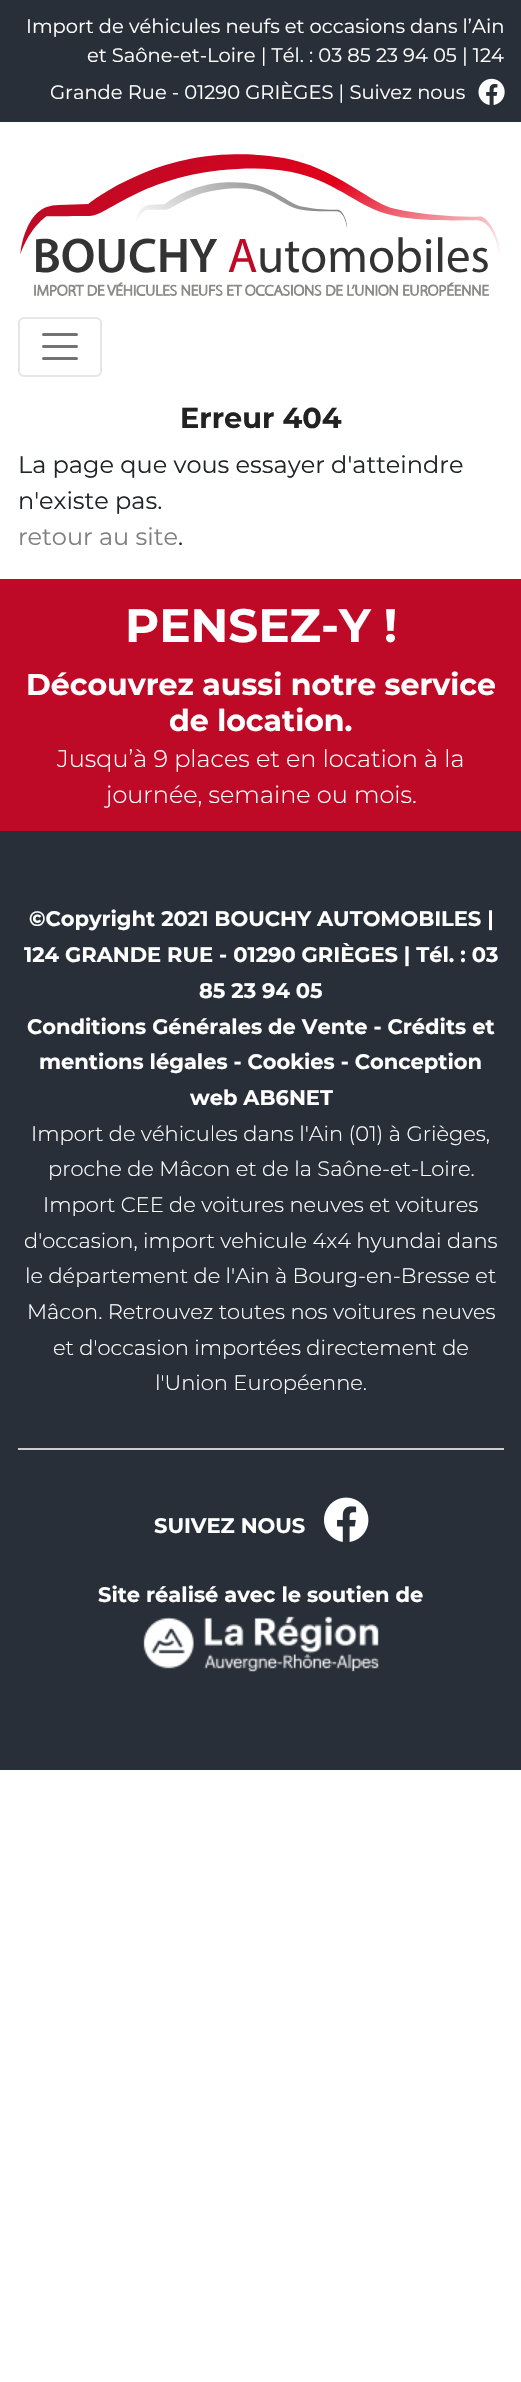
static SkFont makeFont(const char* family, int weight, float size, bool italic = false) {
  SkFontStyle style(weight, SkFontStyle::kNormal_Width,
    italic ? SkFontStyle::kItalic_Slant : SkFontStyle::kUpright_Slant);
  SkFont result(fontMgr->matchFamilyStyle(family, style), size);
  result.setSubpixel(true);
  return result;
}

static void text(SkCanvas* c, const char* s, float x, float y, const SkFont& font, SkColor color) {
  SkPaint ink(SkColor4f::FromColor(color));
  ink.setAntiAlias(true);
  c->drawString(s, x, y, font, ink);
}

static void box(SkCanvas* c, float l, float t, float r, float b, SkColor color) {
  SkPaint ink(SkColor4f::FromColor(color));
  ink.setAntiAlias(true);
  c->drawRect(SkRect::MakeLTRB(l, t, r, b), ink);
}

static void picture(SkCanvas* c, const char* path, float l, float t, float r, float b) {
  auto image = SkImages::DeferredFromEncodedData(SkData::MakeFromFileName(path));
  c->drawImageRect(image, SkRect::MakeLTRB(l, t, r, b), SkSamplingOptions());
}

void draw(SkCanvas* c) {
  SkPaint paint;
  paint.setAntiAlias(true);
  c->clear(0xffffffff);
  box(c, 0, 0, 521, 122, 0xff282f39);
  SkFont face1 = makeFont("Montserrat", 400, 19.5f);
  text(c, "Import de véhicules neufs et occasions dans l’Ain", 26, 33, face1, 0xffffffff);
  text(c, "et Saône-et-Loire | Tél. : 03 85 23 94 05 | 124", 87, 62, face1, 0xffffffff);
  text(c, "Grande Rue - 01290 GRIÈGES | Suivez nous", 50, 99, face1, 0xffffffff);
  picture(c, "img_01.png", 478, 78, 505, 105);
  picture(c, "img_02.png", 20, 154, 500, 296);
  paint.setStyle(SkPaint::kStroke_Style);
  paint.setStrokeWidth(2);
  paint.setColor(0xffe6e6e6);
  c->drawRoundRect(SkRect::MakeLTRB(19, 318, 101, 376), 5, 5, paint);
  paint.setStrokeWidth(3);
  paint.setStrokeCap(SkPaint::kRound_Cap);
  paint.setColor(0xff737373);
  c->drawPath(SkPathBuilder().moveTo(43.5f, 334.5f).lineTo(76.5f, 334.5f).moveTo(43.5f, 346.5f).lineTo(76.5f, 346.5f).moveTo(43.5f, 358.5f).lineTo(76.5f, 358.5f).detach(), paint);
  SkFont face2 = makeFont("Montserrat", 700, 28.75f);
  text(c, "Erreur 404", 180, 428, face2, 0xff222222);
  SkFont face3 = makeFont("Montserrat", 400, 24);
  text(c, "La page que vous essayer d'atteindre", 18, 473, face3, 0xff212529);
  text(c, "n'existe pas.", 18, 509, face3, 0xff212529);
  text(c, "retour au site", 18, 545, face3, 0xff808080);
  text(c, ".", 178, 545, face3, 0xff212529);
  box(c, 0, 579, 521, 831, 0xffbe0a26);
  SkFont face4 = makeFont("Montserrat", 700, 46.75f);
  text(c, "PENSEZ-Y !", 125, 642, face4, 0xffffffff);
  SkFont face5 = makeFont("Montserrat", 700, 30);
  text(c, "Découvrez aussi notre service", 26, 695, face5, 0xffffffff);
  text(c, "de location.", 169, 731, face5, 0xffffffff);
  SkFont face6 = makeFont("Montserrat", 300, 24);
  text(c, "Jusqu’à 9 places et en location à la", 57, 767, face6, 0xffffffff);
  text(c, "journée, semaine ou mois.", 106, 803, face6, 0xffffffff);
  box(c, 0, 831, 521, 1770, 0xff282f39);
  SkFont face7 = makeFont("Montserrat", 700, 21);
  text(c, "©Copyright 2021 BOUCHY AUTOMOBILES |", 29, 926, face7, 0xffffffff);
  text(c, "124 GRANDE RUE - 01290 GRIÈGES | Tél. : 03", 24, 962, face7, 0xffffffff);
  text(c, "85 23 94 05", 199, 998, face7, 0xffffffff);
  text(c, "Conditions Générales de Vente - Crédits et", 27, 1034, face7, 0xffffffff);
  text(c, "mentions légales - Cookies - Conception", 39, 1069, face7, 0xffffffff);
  text(c, "web AB6NET", 190, 1105, face7, 0xffffffff);
  SkFont face8 = makeFont("Montserrat", 300, 21);
  text(c, "Import de véhicules dans l'Ain (01) à Grièges,", 31, 1141, face8, 0xffffffff);
  text(c, "proche de Mâcon et de la Saône-et-Loire.", 48, 1176, face8, 0xffffffff);
  text(c, "Import CEE de voitures neuves et voitures", 43, 1212, face8, 0xffffffff);
  text(c, "d'occasion, import vehicule 4x4 hyundai dans", 24, 1248, face8, 0xffffffff);
  text(c, "le département de l'Ain à Bourg-en-Bresse et", 25, 1283, face8, 0xffffffff);
  text(c, "Mâcon. Retrouvez toutes nos voitures neuves", 27, 1319, face8, 0xffffffff);
  text(c, "et d'occasion importées directement de", 53, 1355, face8, 0xffffffff);
  text(c, "l'Union Européenne.", 155, 1390, face8, 0xffffffff);
  box(c, 18, 1448, 504, 1450, 0xffcccccc);
  text(c, "SUIVEZ NOUS", 154, 1533, face7, 0xffffffff);
  picture(c, "img_03.png", 324, 1497, 369, 1542);
  text(c, "Site réalisé avec le soutien de", 98, 1602, face7, 0xffffffff);
  picture(c, "img_04.png", 143, 1616, 379, 1672);
}
